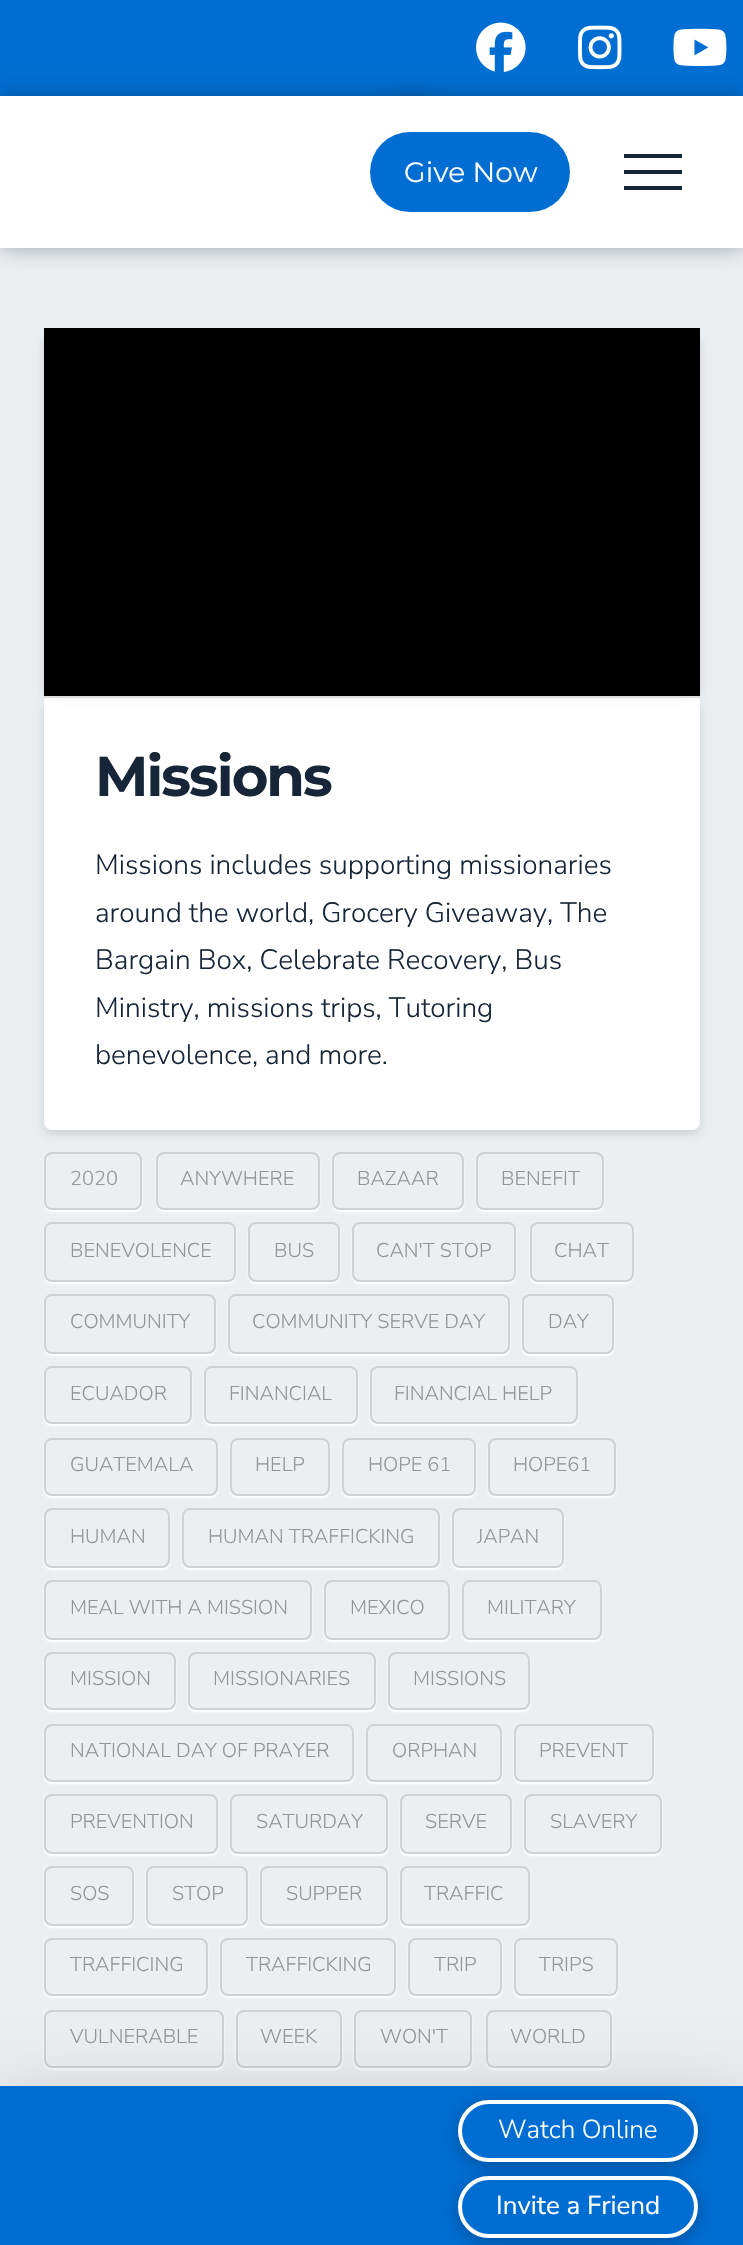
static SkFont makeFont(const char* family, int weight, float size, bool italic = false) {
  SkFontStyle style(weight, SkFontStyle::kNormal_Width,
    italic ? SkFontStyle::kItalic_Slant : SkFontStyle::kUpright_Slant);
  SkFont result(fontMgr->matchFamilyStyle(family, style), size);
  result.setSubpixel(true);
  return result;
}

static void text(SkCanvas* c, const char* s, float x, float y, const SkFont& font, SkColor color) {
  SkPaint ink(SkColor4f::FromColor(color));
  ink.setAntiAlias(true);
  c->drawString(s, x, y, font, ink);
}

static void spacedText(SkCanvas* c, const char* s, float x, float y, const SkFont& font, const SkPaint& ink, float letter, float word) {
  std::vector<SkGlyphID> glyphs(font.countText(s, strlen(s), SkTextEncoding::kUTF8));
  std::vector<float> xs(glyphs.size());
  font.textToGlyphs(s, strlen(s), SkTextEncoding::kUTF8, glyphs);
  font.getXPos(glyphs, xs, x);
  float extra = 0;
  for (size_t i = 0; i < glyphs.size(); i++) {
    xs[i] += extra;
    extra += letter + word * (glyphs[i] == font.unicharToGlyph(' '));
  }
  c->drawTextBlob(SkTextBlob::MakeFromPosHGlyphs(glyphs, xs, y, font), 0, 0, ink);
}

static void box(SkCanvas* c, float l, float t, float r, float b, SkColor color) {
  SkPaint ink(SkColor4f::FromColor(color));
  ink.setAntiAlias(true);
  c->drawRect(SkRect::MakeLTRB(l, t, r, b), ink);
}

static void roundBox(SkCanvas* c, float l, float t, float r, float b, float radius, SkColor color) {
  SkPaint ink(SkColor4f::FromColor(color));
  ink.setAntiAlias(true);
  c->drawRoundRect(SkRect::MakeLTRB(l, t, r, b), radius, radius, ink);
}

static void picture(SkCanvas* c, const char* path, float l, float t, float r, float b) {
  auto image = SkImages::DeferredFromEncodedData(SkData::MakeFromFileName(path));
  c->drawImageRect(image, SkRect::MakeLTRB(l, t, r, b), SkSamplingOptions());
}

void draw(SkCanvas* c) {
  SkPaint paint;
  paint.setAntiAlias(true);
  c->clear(0xffeceff1);
  box(c, 0, 0, 743, 96, 0xff006dd2);
  picture(c, "img_01.png", 476, 22, 526, 72);
  picture(c, "img_02.png", 578, 25, 622, 70);
  picture(c, "img_03.png", 673, 28, 727, 66);
  paint.setColor(0x40000000);
  paint.setMaskFilter(SkMaskFilter::MakeBlur(kNormal_SkBlurStyle, 10.5f));
  c->drawRoundRect(SkRect::MakeLTRB(368, 100, 456, 188), 44, 44, paint);
  paint.setMaskFilter(nullptr);
  paint.setColor(0x61162537);
  paint.setMaskFilter(SkMaskFilter::MakeBlur(kNormal_SkBlurStyle, 10));
  c->drawRect(SkRect::MakeLTRB(0, 96, 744, 248), paint);
  paint.setMaskFilter(nullptr);
  box(c, 0, 96, 743, 248, 0xffffffff);
  roundBox(c, 370, 132, 570, 212, 40, 0xff006dd2);
  SkFont face1 = makeFont("Montserrat", 400, 28);
  text(c, "Give Now", 404, 182, face1, 0xffffffff);
  box(c, 624, 154, 682, 158, 0xff162537);
  box(c, 624, 170, 682, 174, 0xff162537);
  box(c, 624, 186, 682, 190, 0xff162537);
  paint.setColor(0x21000000);
  paint.setMaskFilter(SkMaskFilter::MakeBlur(kNormal_SkBlurStyle, 5));
  c->drawRoundRect(SkRect::MakeLTRB(44, 702, 700, 1134), 8, 8, paint);
  paint.setMaskFilter(nullptr);
  paint.setColor(0xffffffff);
  c->drawPath(SkPathBuilder().moveTo(44, 698).lineTo(700, 698).lineTo(700, 1122).cubicTo(700, 1126.5f, 696.5f, 1130, 692, 1130).lineTo(52, 1130).cubicTo(47.5f, 1130, 44, 1126.5f, 44, 1122).close().detach(), paint);
  paint.setColor(0x21000000);
  paint.setMaskFilter(SkMaskFilter::MakeBlur(kNormal_SkBlurStyle, 4));
  c->drawRect(SkRect::MakeLTRB(44, 340, 684, 694), paint);
  paint.setMaskFilter(nullptr);
  paint.setMaskFilter(SkMaskFilter::MakeBlur(kNormal_SkBlurStyle, 4));
  c->drawRect(SkRect::MakeLTRB(60, 340, 700, 694), paint);
  paint.setMaskFilter(nullptr);
  box(c, 44, 696, 700, 698, 0xffdddddd);
  box(c, 44, 328, 700, 696, 0xff000000);
  SkFont face2 = makeFont("Montserrat", 700, 56);
  paint.setColor(0xff162537);
  spacedText(c, "Missions", 95, 796, face2, paint, -2, 0);
  SkFont face3 = makeFont("Nunito Sans", 300, 28);
  text(c, "Missions includes supporting missionaries", 95, 874, face3, 0xff162537);
  text(c, "around the world, Grocery Giveaway, The", 95, 922, face3, 0xff162537);
  text(c, "Bargain Box, Celebrate Recovery, Bus", 95, 969, face3, 0xff162537);
  text(c, "Ministry, missions trips, Tutoring", 95, 1017, face3, 0xff162537);
  text(c, "benevolence, and more.", 95, 1064, face3, 0xff162537);
  c->save();
  c->clipPath(SkPathBuilder(SkPathFillType::kEvenOdd).moveTo(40, 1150).lineTo(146, 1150).lineTo(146, 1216).lineTo(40, 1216).close().moveTo(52, 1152).lineTo(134, 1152).cubicTo(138.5f, 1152, 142, 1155.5f, 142, 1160).lineTo(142, 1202).cubicTo(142, 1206.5f, 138.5f, 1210, 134, 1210).lineTo(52, 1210).cubicTo(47.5f, 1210, 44, 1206.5f, 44, 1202).lineTo(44, 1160).cubicTo(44, 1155.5f, 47.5f, 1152, 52, 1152).close().detach(), true);
  paint.setColor(0xf2ffffff);
  paint.setMaskFilter(SkMaskFilter::MakeBlur(kNormal_SkBlurStyle, 1));
  c->drawRoundRect(SkRect::MakeLTRB(44, 1154, 142, 1212), 8, 8, paint);
  paint.setMaskFilter(nullptr);
  c->restore();
  paint.setStyle(SkPaint::kStroke_Style);
  paint.setStrokeWidth(2);
  paint.setColor(0x1f000000);
  c->drawRoundRect(SkRect::MakeLTRB(45, 1153, 141, 1209), 7, 7, paint);
  SkFont face4 = makeFont("Nunito Sans", 300, 20);
  text(c, "2020", 70, 1185, face4, 0xff939596);
  c->save();
  c->clipPath(SkPathBuilder(SkPathFillType::kEvenOdd).moveTo(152, 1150).lineTo(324, 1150).lineTo(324, 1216).lineTo(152, 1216).close().moveTo(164, 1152).lineTo(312, 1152).cubicTo(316.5f, 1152, 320, 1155.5f, 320, 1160).lineTo(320, 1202).cubicTo(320, 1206.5f, 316.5f, 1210, 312, 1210).lineTo(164, 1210).cubicTo(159.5f, 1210, 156, 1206.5f, 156, 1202).lineTo(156, 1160).cubicTo(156, 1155.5f, 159.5f, 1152, 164, 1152).close().detach(), true);
  paint.setStyle(SkPaint::kFill_Style);
  paint.setColor(0xf2ffffff);
  paint.setMaskFilter(SkMaskFilter::MakeBlur(kNormal_SkBlurStyle, 1));
  c->drawRoundRect(SkRect::MakeLTRB(156, 1154, 320, 1212), 8, 8, paint);
  paint.setMaskFilter(nullptr);
  c->restore();
  paint.setStyle(SkPaint::kStroke_Style);
  paint.setColor(0x1f000000);
  c->drawRoundRect(SkRect::MakeLTRB(157, 1153, 319, 1209), 7, 7, paint);
  text(c, "ANYWHERE", 180, 1185, face4, 0xff939596);
  c->save();
  c->clipPath(SkPathBuilder(SkPathFillType::kEvenOdd).moveTo(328, 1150).lineTo(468, 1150).lineTo(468, 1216).lineTo(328, 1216).close().moveTo(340, 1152).lineTo(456, 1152).cubicTo(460.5f, 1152, 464, 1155.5f, 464, 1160).lineTo(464, 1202).cubicTo(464, 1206.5f, 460.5f, 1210, 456, 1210).lineTo(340, 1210).cubicTo(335.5f, 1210, 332, 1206.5f, 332, 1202).lineTo(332, 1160).cubicTo(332, 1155.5f, 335.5f, 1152, 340, 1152).close().detach(), true);
  paint.setStyle(SkPaint::kFill_Style);
  paint.setColor(0xf2ffffff);
  paint.setMaskFilter(SkMaskFilter::MakeBlur(kNormal_SkBlurStyle, 1));
  c->drawRoundRect(SkRect::MakeLTRB(332, 1154, 464, 1212), 8, 8, paint);
  paint.setMaskFilter(nullptr);
  c->restore();
  paint.setStyle(SkPaint::kStroke_Style);
  paint.setColor(0x1f000000);
  c->drawRoundRect(SkRect::MakeLTRB(333, 1153, 463, 1209), 7, 7, paint);
  text(c, "BAZAAR", 357, 1185, face4, 0xff939596);
  c->save();
  c->clipPath(SkPathBuilder(SkPathFillType::kEvenOdd).moveTo(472, 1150).lineTo(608, 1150).lineTo(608, 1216).lineTo(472, 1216).close().moveTo(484, 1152).lineTo(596, 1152).cubicTo(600.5f, 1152, 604, 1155.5f, 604, 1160).lineTo(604, 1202).cubicTo(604, 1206.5f, 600.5f, 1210, 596, 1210).lineTo(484, 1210).cubicTo(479.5f, 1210, 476, 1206.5f, 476, 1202).lineTo(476, 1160).cubicTo(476, 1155.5f, 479.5f, 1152, 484, 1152).close().detach(), true);
  paint.setStyle(SkPaint::kFill_Style);
  paint.setColor(0xf2ffffff);
  paint.setMaskFilter(SkMaskFilter::MakeBlur(kNormal_SkBlurStyle, 1));
  c->drawRoundRect(SkRect::MakeLTRB(476, 1154, 604, 1212), 8, 8, paint);
  paint.setMaskFilter(nullptr);
  c->restore();
  paint.setStyle(SkPaint::kStroke_Style);
  paint.setColor(0x1f000000);
  c->drawRoundRect(SkRect::MakeLTRB(477, 1153, 603, 1209), 7, 7, paint);
  text(c, "BENEFIT", 501, 1185, face4, 0xff939596);
  c->save();
  c->clipPath(SkPathBuilder(SkPathFillType::kEvenOdd).moveTo(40, 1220).lineTo(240, 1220).lineTo(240, 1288).lineTo(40, 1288).close().moveTo(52, 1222).lineTo(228, 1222).cubicTo(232.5f, 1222, 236, 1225.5f, 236, 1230).lineTo(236, 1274).cubicTo(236, 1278.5f, 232.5f, 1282, 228, 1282).lineTo(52, 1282).cubicTo(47.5f, 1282, 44, 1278.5f, 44, 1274).lineTo(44, 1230).cubicTo(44, 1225.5f, 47.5f, 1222, 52, 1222).close().detach(), true);
  paint.setStyle(SkPaint::kFill_Style);
  paint.setColor(0xf2ffffff);
  paint.setMaskFilter(SkMaskFilter::MakeBlur(kNormal_SkBlurStyle, 1));
  c->drawRoundRect(SkRect::MakeLTRB(44, 1224, 236, 1284), 8, 8, paint);
  paint.setMaskFilter(nullptr);
  c->restore();
  paint.setStyle(SkPaint::kStroke_Style);
  paint.setColor(0x1f000000);
  c->drawRoundRect(SkRect::MakeLTRB(45, 1223, 235, 1281), 7, 7, paint);
  text(c, "BENEVOLENCE", 70, 1257, face4, 0xff939596);
  c->save();
  c->clipPath(SkPathBuilder(SkPathFillType::kEvenOdd).moveTo(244, 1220).lineTo(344, 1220).lineTo(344, 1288).lineTo(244, 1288).close().moveTo(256, 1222).lineTo(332, 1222).cubicTo(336.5f, 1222, 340, 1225.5f, 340, 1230).lineTo(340, 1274).cubicTo(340, 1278.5f, 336.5f, 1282, 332, 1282).lineTo(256, 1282).cubicTo(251.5f, 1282, 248, 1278.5f, 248, 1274).lineTo(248, 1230).cubicTo(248, 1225.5f, 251.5f, 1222, 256, 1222).close().detach(), true);
  paint.setStyle(SkPaint::kFill_Style);
  paint.setColor(0xf2ffffff);
  paint.setMaskFilter(SkMaskFilter::MakeBlur(kNormal_SkBlurStyle, 1));
  c->drawRoundRect(SkRect::MakeLTRB(248, 1224, 340, 1284), 8, 8, paint);
  paint.setMaskFilter(nullptr);
  c->restore();
  paint.setStyle(SkPaint::kStroke_Style);
  paint.setColor(0x1f000000);
  c->drawRoundRect(SkRect::MakeLTRB(249, 1223, 339, 1281), 7, 7, paint);
  text(c, "BUS", 274, 1257, face4, 0xff939596);
  c->save();
  c->clipPath(SkPathBuilder(SkPathFillType::kEvenOdd).moveTo(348, 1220).lineTo(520, 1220).lineTo(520, 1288).lineTo(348, 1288).close().moveTo(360, 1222).lineTo(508, 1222).cubicTo(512.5f, 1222, 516, 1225.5f, 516, 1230).lineTo(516, 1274).cubicTo(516, 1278.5f, 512.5f, 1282, 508, 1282).lineTo(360, 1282).cubicTo(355.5f, 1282, 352, 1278.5f, 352, 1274).lineTo(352, 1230).cubicTo(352, 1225.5f, 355.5f, 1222, 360, 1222).close().detach(), true);
  paint.setStyle(SkPaint::kFill_Style);
  paint.setColor(0xf2ffffff);
  paint.setMaskFilter(SkMaskFilter::MakeBlur(kNormal_SkBlurStyle, 1));
  c->drawRoundRect(SkRect::MakeLTRB(352, 1224, 516, 1284), 8, 8, paint);
  paint.setMaskFilter(nullptr);
  c->restore();
  paint.setStyle(SkPaint::kStroke_Style);
  paint.setColor(0x1f000000);
  c->drawRoundRect(SkRect::MakeLTRB(353, 1223, 515, 1281), 7, 7, paint);
  text(c, "CAN'T STOP", 376, 1257, face4, 0xff939596);
  c->save();
  c->clipPath(SkPathBuilder(SkPathFillType::kEvenOdd).moveTo(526, 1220).lineTo(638, 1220).lineTo(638, 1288).lineTo(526, 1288).close().moveTo(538, 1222).lineTo(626, 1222).cubicTo(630.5f, 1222, 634, 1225.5f, 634, 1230).lineTo(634, 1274).cubicTo(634, 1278.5f, 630.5f, 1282, 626, 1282).lineTo(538, 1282).cubicTo(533.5f, 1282, 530, 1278.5f, 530, 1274).lineTo(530, 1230).cubicTo(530, 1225.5f, 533.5f, 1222, 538, 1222).close().detach(), true);
  paint.setStyle(SkPaint::kFill_Style);
  paint.setColor(0xf2ffffff);
  paint.setMaskFilter(SkMaskFilter::MakeBlur(kNormal_SkBlurStyle, 1));
  c->drawRoundRect(SkRect::MakeLTRB(530, 1224, 634, 1284), 8, 8, paint);
  paint.setMaskFilter(nullptr);
  c->restore();
  paint.setStyle(SkPaint::kStroke_Style);
  paint.setColor(0x1f000000);
  c->drawRoundRect(SkRect::MakeLTRB(531, 1223, 633, 1281), 7, 7, paint);
  text(c, "CHAT", 554, 1257, face4, 0xff939596);
  c->save();
  c->clipPath(SkPathBuilder(SkPathFillType::kEvenOdd).moveTo(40, 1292).lineTo(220, 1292).lineTo(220, 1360).lineTo(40, 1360).close().moveTo(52, 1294).lineTo(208, 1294).cubicTo(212.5f, 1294, 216, 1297.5f, 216, 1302).lineTo(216, 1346).cubicTo(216, 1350.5f, 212.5f, 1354, 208, 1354).lineTo(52, 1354).cubicTo(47.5f, 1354, 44, 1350.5f, 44, 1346).lineTo(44, 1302).cubicTo(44, 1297.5f, 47.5f, 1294, 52, 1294).close().detach(), true);
  paint.setStyle(SkPaint::kFill_Style);
  paint.setColor(0xf2ffffff);
  paint.setMaskFilter(SkMaskFilter::MakeBlur(kNormal_SkBlurStyle, 1));
  c->drawRoundRect(SkRect::MakeLTRB(44, 1296, 216, 1356), 8, 8, paint);
  paint.setMaskFilter(nullptr);
  c->restore();
  paint.setStyle(SkPaint::kStroke_Style);
  paint.setColor(0x1f000000);
  c->drawRoundRect(SkRect::MakeLTRB(45, 1295, 215, 1353), 7, 7, paint);
  text(c, "COMMUNITY", 70, 1328, face4, 0xff939596);
  c->save();
  c->clipPath(SkPathBuilder(SkPathFillType::kEvenOdd).moveTo(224, 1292).lineTo(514, 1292).lineTo(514, 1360).lineTo(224, 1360).close().moveTo(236, 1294).lineTo(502, 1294).cubicTo(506.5f, 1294, 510, 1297.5f, 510, 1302).lineTo(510, 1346).cubicTo(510, 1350.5f, 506.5f, 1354, 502, 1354).lineTo(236, 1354).cubicTo(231.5f, 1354, 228, 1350.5f, 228, 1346).lineTo(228, 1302).cubicTo(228, 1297.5f, 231.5f, 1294, 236, 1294).close().detach(), true);
  paint.setStyle(SkPaint::kFill_Style);
  paint.setColor(0xf2ffffff);
  paint.setMaskFilter(SkMaskFilter::MakeBlur(kNormal_SkBlurStyle, 1));
  c->drawRoundRect(SkRect::MakeLTRB(228, 1296, 510, 1356), 8, 8, paint);
  paint.setMaskFilter(nullptr);
  c->restore();
  paint.setStyle(SkPaint::kStroke_Style);
  paint.setColor(0x1f000000);
  c->drawRoundRect(SkRect::MakeLTRB(229, 1295, 509, 1353), 7, 7, paint);
  text(c, "COMMUNITY SERVE DAY", 252, 1328, face4, 0xff939596);
  c->save();
  c->clipPath(SkPathBuilder(SkPathFillType::kEvenOdd).moveTo(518, 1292).lineTo(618, 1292).lineTo(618, 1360).lineTo(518, 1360).close().moveTo(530, 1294).lineTo(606, 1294).cubicTo(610.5f, 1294, 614, 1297.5f, 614, 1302).lineTo(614, 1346).cubicTo(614, 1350.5f, 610.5f, 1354, 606, 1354).lineTo(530, 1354).cubicTo(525.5f, 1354, 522, 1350.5f, 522, 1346).lineTo(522, 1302).cubicTo(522, 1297.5f, 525.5f, 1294, 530, 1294).close().detach(), true);
  paint.setStyle(SkPaint::kFill_Style);
  paint.setColor(0xf2ffffff);
  paint.setMaskFilter(SkMaskFilter::MakeBlur(kNormal_SkBlurStyle, 1));
  c->drawRoundRect(SkRect::MakeLTRB(522, 1296, 614, 1356), 8, 8, paint);
  paint.setMaskFilter(nullptr);
  c->restore();
  paint.setStyle(SkPaint::kStroke_Style);
  paint.setColor(0x1f000000);
  c->drawRoundRect(SkRect::MakeLTRB(523, 1295, 613, 1353), 7, 7, paint);
  text(c, "DAY", 548, 1328, face4, 0xff939596);
  c->save();
  c->clipPath(SkPathBuilder(SkPathFillType::kEvenOdd).moveTo(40, 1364).lineTo(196, 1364).lineTo(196, 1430).lineTo(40, 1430).close().moveTo(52, 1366).lineTo(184, 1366).cubicTo(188.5f, 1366, 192, 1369.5f, 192, 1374).lineTo(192, 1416).cubicTo(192, 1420.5f, 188.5f, 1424, 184, 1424).lineTo(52, 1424).cubicTo(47.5f, 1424, 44, 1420.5f, 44, 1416).lineTo(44, 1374).cubicTo(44, 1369.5f, 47.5f, 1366, 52, 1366).close().detach(), true);
  paint.setStyle(SkPaint::kFill_Style);
  paint.setColor(0xf2ffffff);
  paint.setMaskFilter(SkMaskFilter::MakeBlur(kNormal_SkBlurStyle, 1));
  c->drawRoundRect(SkRect::MakeLTRB(44, 1368, 192, 1426), 8, 8, paint);
  paint.setMaskFilter(nullptr);
  c->restore();
  paint.setStyle(SkPaint::kStroke_Style);
  paint.setColor(0x1f000000);
  c->drawRoundRect(SkRect::MakeLTRB(45, 1367, 191, 1423), 7, 7, paint);
  text(c, "ECUADOR", 70, 1400, face4, 0xff939596);
  c->save();
  c->clipPath(SkPathBuilder(SkPathFillType::kEvenOdd).moveTo(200, 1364).lineTo(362, 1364).lineTo(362, 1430).lineTo(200, 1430).close().moveTo(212, 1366).lineTo(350, 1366).cubicTo(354.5f, 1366, 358, 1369.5f, 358, 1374).lineTo(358, 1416).cubicTo(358, 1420.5f, 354.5f, 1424, 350, 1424).lineTo(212, 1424).cubicTo(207.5f, 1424, 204, 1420.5f, 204, 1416).lineTo(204, 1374).cubicTo(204, 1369.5f, 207.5f, 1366, 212, 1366).close().detach(), true);
  paint.setStyle(SkPaint::kFill_Style);
  paint.setColor(0xf2ffffff);
  paint.setMaskFilter(SkMaskFilter::MakeBlur(kNormal_SkBlurStyle, 1));
  c->drawRoundRect(SkRect::MakeLTRB(204, 1368, 358, 1426), 8, 8, paint);
  paint.setMaskFilter(nullptr);
  c->restore();
  paint.setStyle(SkPaint::kStroke_Style);
  paint.setColor(0x1f000000);
  c->drawRoundRect(SkRect::MakeLTRB(205, 1367, 357, 1423), 7, 7, paint);
  text(c, "FINANCIAL", 229, 1400, face4, 0xff939596);
  c->save();
  c->clipPath(SkPathBuilder(SkPathFillType::kEvenOdd).moveTo(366, 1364).lineTo(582, 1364).lineTo(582, 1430).lineTo(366, 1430).close().moveTo(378, 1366).lineTo(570, 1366).cubicTo(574.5f, 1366, 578, 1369.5f, 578, 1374).lineTo(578, 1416).cubicTo(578, 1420.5f, 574.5f, 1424, 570, 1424).lineTo(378, 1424).cubicTo(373.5f, 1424, 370, 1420.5f, 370, 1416).lineTo(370, 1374).cubicTo(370, 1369.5f, 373.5f, 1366, 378, 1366).close().detach(), true);
  paint.setStyle(SkPaint::kFill_Style);
  paint.setColor(0xf2ffffff);
  paint.setMaskFilter(SkMaskFilter::MakeBlur(kNormal_SkBlurStyle, 1));
  c->drawRoundRect(SkRect::MakeLTRB(370, 1368, 578, 1426), 8, 8, paint);
  paint.setMaskFilter(nullptr);
  c->restore();
  paint.setStyle(SkPaint::kStroke_Style);
  paint.setColor(0x1f000000);
  c->drawRoundRect(SkRect::MakeLTRB(371, 1367, 577, 1423), 7, 7, paint);
  text(c, "FINANCIAL HELP", 394, 1400, face4, 0xff939596);
  c->save();
  c->clipPath(SkPathBuilder(SkPathFillType::kEvenOdd).moveTo(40, 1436).lineTo(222, 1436).lineTo(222, 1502).lineTo(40, 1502).close().moveTo(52, 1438).lineTo(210, 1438).cubicTo(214.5f, 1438, 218, 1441.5f, 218, 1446).lineTo(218, 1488).cubicTo(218, 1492.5f, 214.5f, 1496, 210, 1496).lineTo(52, 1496).cubicTo(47.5f, 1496, 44, 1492.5f, 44, 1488).lineTo(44, 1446).cubicTo(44, 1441.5f, 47.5f, 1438, 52, 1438).close().detach(), true);
  paint.setStyle(SkPaint::kFill_Style);
  paint.setColor(0xf2ffffff);
  paint.setMaskFilter(SkMaskFilter::MakeBlur(kNormal_SkBlurStyle, 1));
  c->drawRoundRect(SkRect::MakeLTRB(44, 1440, 218, 1498), 8, 8, paint);
  paint.setMaskFilter(nullptr);
  c->restore();
  paint.setStyle(SkPaint::kStroke_Style);
  paint.setColor(0x1f000000);
  c->drawRoundRect(SkRect::MakeLTRB(45, 1439, 217, 1495), 7, 7, paint);
  text(c, "GUATEMALA", 70, 1471, face4, 0xff939596);
  c->save();
  c->clipPath(SkPathBuilder(SkPathFillType::kEvenOdd).moveTo(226, 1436).lineTo(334, 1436).lineTo(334, 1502).lineTo(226, 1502).close().moveTo(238, 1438).lineTo(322, 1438).cubicTo(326.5f, 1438, 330, 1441.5f, 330, 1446).lineTo(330, 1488).cubicTo(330, 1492.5f, 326.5f, 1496, 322, 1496).lineTo(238, 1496).cubicTo(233.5f, 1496, 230, 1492.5f, 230, 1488).lineTo(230, 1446).cubicTo(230, 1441.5f, 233.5f, 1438, 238, 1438).close().detach(), true);
  paint.setStyle(SkPaint::kFill_Style);
  paint.setColor(0xf2ffffff);
  paint.setMaskFilter(SkMaskFilter::MakeBlur(kNormal_SkBlurStyle, 1));
  c->drawRoundRect(SkRect::MakeLTRB(230, 1440, 330, 1498), 8, 8, paint);
  paint.setMaskFilter(nullptr);
  c->restore();
  paint.setStyle(SkPaint::kStroke_Style);
  paint.setColor(0x1f000000);
  c->drawRoundRect(SkRect::MakeLTRB(231, 1439, 329, 1495), 7, 7, paint);
  text(c, "HELP", 255, 1471, face4, 0xff939596);
  c->save();
  c->clipPath(SkPathBuilder(SkPathFillType::kEvenOdd).moveTo(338, 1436).lineTo(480, 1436).lineTo(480, 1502).lineTo(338, 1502).close().moveTo(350, 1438).lineTo(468, 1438).cubicTo(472.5f, 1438, 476, 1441.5f, 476, 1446).lineTo(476, 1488).cubicTo(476, 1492.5f, 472.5f, 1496, 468, 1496).lineTo(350, 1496).cubicTo(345.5f, 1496, 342, 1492.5f, 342, 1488).lineTo(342, 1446).cubicTo(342, 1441.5f, 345.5f, 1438, 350, 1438).close().detach(), true);
  paint.setStyle(SkPaint::kFill_Style);
  paint.setColor(0xf2ffffff);
  paint.setMaskFilter(SkMaskFilter::MakeBlur(kNormal_SkBlurStyle, 1));
  c->drawRoundRect(SkRect::MakeLTRB(342, 1440, 476, 1498), 8, 8, paint);
  paint.setMaskFilter(nullptr);
  c->restore();
  paint.setStyle(SkPaint::kStroke_Style);
  paint.setColor(0x1f000000);
  c->drawRoundRect(SkRect::MakeLTRB(343, 1439, 475, 1495), 7, 7, paint);
  text(c, "HOPE 61", 368, 1471, face4, 0xff939596);
  c->save();
  c->clipPath(SkPathBuilder(SkPathFillType::kEvenOdd).moveTo(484, 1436).lineTo(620, 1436).lineTo(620, 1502).lineTo(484, 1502).close().moveTo(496, 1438).lineTo(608, 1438).cubicTo(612.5f, 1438, 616, 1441.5f, 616, 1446).lineTo(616, 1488).cubicTo(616, 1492.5f, 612.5f, 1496, 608, 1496).lineTo(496, 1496).cubicTo(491.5f, 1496, 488, 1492.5f, 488, 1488).lineTo(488, 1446).cubicTo(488, 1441.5f, 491.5f, 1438, 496, 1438).close().detach(), true);
  paint.setStyle(SkPaint::kFill_Style);
  paint.setColor(0xf2ffffff);
  paint.setMaskFilter(SkMaskFilter::MakeBlur(kNormal_SkBlurStyle, 1));
  c->drawRoundRect(SkRect::MakeLTRB(488, 1440, 616, 1498), 8, 8, paint);
  paint.setMaskFilter(nullptr);
  c->restore();
  paint.setStyle(SkPaint::kStroke_Style);
  paint.setColor(0x1f000000);
  c->drawRoundRect(SkRect::MakeLTRB(489, 1439, 615, 1495), 7, 7, paint);
  text(c, "HOPE61", 513, 1471, face4, 0xff939596);
  c->save();
  c->clipPath(SkPathBuilder(SkPathFillType::kEvenOdd).moveTo(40, 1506).lineTo(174, 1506).lineTo(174, 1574).lineTo(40, 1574).close().moveTo(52, 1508).lineTo(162, 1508).cubicTo(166.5f, 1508, 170, 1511.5f, 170, 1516).lineTo(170, 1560).cubicTo(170, 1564.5f, 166.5f, 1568, 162, 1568).lineTo(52, 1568).cubicTo(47.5f, 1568, 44, 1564.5f, 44, 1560).lineTo(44, 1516).cubicTo(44, 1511.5f, 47.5f, 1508, 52, 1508).close().detach(), true);
  paint.setStyle(SkPaint::kFill_Style);
  paint.setColor(0xf2ffffff);
  paint.setMaskFilter(SkMaskFilter::MakeBlur(kNormal_SkBlurStyle, 1));
  c->drawRoundRect(SkRect::MakeLTRB(44, 1510, 170, 1570), 8, 8, paint);
  paint.setMaskFilter(nullptr);
  c->restore();
  paint.setStyle(SkPaint::kStroke_Style);
  paint.setColor(0x1f000000);
  c->drawRoundRect(SkRect::MakeLTRB(45, 1509, 169, 1567), 7, 7, paint);
  text(c, "HUMAN", 70, 1543, face4, 0xff939596);
  c->save();
  c->clipPath(SkPathBuilder(SkPathFillType::kEvenOdd).moveTo(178, 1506).lineTo(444, 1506).lineTo(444, 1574).lineTo(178, 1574).close().moveTo(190, 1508).lineTo(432, 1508).cubicTo(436.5f, 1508, 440, 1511.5f, 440, 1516).lineTo(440, 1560).cubicTo(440, 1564.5f, 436.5f, 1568, 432, 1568).lineTo(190, 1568).cubicTo(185.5f, 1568, 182, 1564.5f, 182, 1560).lineTo(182, 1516).cubicTo(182, 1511.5f, 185.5f, 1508, 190, 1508).close().detach(), true);
  paint.setStyle(SkPaint::kFill_Style);
  paint.setColor(0xf2ffffff);
  paint.setMaskFilter(SkMaskFilter::MakeBlur(kNormal_SkBlurStyle, 1));
  c->drawRoundRect(SkRect::MakeLTRB(182, 1510, 440, 1570), 8, 8, paint);
  paint.setMaskFilter(nullptr);
  c->restore();
  paint.setStyle(SkPaint::kStroke_Style);
  paint.setColor(0x1f000000);
  c->drawRoundRect(SkRect::MakeLTRB(183, 1509, 439, 1567), 7, 7, paint);
  text(c, "HUMAN TRAFFICKING", 208, 1543, face4, 0xff939596);
  c->save();
  c->clipPath(SkPathBuilder(SkPathFillType::kEvenOdd).moveTo(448, 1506).lineTo(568, 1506).lineTo(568, 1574).lineTo(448, 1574).close().moveTo(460, 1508).lineTo(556, 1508).cubicTo(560.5f, 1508, 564, 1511.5f, 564, 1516).lineTo(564, 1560).cubicTo(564, 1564.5f, 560.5f, 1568, 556, 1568).lineTo(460, 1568).cubicTo(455.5f, 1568, 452, 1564.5f, 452, 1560).lineTo(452, 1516).cubicTo(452, 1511.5f, 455.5f, 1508, 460, 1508).close().detach(), true);
  paint.setStyle(SkPaint::kFill_Style);
  paint.setColor(0xf2ffffff);
  paint.setMaskFilter(SkMaskFilter::MakeBlur(kNormal_SkBlurStyle, 1));
  c->drawRoundRect(SkRect::MakeLTRB(452, 1510, 564, 1570), 8, 8, paint);
  paint.setMaskFilter(nullptr);
  c->restore();
  paint.setStyle(SkPaint::kStroke_Style);
  paint.setColor(0x1f000000);
  c->drawRoundRect(SkRect::MakeLTRB(453, 1509, 563, 1567), 7, 7, paint);
  text(c, "JAPAN", 477, 1543, face4, 0xff939596);
  c->save();
  c->clipPath(SkPathBuilder(SkPathFillType::kEvenOdd).moveTo(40, 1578).lineTo(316, 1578).lineTo(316, 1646).lineTo(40, 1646).close().moveTo(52, 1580).lineTo(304, 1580).cubicTo(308.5f, 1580, 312, 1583.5f, 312, 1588).lineTo(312, 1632).cubicTo(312, 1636.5f, 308.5f, 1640, 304, 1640).lineTo(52, 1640).cubicTo(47.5f, 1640, 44, 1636.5f, 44, 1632).lineTo(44, 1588).cubicTo(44, 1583.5f, 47.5f, 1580, 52, 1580).close().detach(), true);
  paint.setStyle(SkPaint::kFill_Style);
  paint.setColor(0xf2ffffff);
  paint.setMaskFilter(SkMaskFilter::MakeBlur(kNormal_SkBlurStyle, 1));
  c->drawRoundRect(SkRect::MakeLTRB(44, 1582, 312, 1642), 8, 8, paint);
  paint.setMaskFilter(nullptr);
  c->restore();
  paint.setStyle(SkPaint::kStroke_Style);
  paint.setColor(0x1f000000);
  c->drawRoundRect(SkRect::MakeLTRB(45, 1581, 311, 1639), 7, 7, paint);
  text(c, "MEAL WITH A MISSION", 70, 1614, face4, 0xff939596);
  c->save();
  c->clipPath(SkPathBuilder(SkPathFillType::kEvenOdd).moveTo(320, 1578).lineTo(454, 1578).lineTo(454, 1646).lineTo(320, 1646).close().moveTo(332, 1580).lineTo(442, 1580).cubicTo(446.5f, 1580, 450, 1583.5f, 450, 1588).lineTo(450, 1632).cubicTo(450, 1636.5f, 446.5f, 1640, 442, 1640).lineTo(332, 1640).cubicTo(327.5f, 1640, 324, 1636.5f, 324, 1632).lineTo(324, 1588).cubicTo(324, 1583.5f, 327.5f, 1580, 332, 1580).close().detach(), true);
  paint.setStyle(SkPaint::kFill_Style);
  paint.setColor(0xf2ffffff);
  paint.setMaskFilter(SkMaskFilter::MakeBlur(kNormal_SkBlurStyle, 1));
  c->drawRoundRect(SkRect::MakeLTRB(324, 1582, 450, 1642), 8, 8, paint);
  paint.setMaskFilter(nullptr);
  c->restore();
  paint.setStyle(SkPaint::kStroke_Style);
  paint.setColor(0x1f000000);
  c->drawRoundRect(SkRect::MakeLTRB(325, 1581, 449, 1639), 7, 7, paint);
  text(c, "MEXICO", 350, 1614, face4, 0xff939596);
  c->save();
  c->clipPath(SkPathBuilder(SkPathFillType::kEvenOdd).moveTo(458, 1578).lineTo(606, 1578).lineTo(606, 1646).lineTo(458, 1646).close().moveTo(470, 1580).lineTo(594, 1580).cubicTo(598.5f, 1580, 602, 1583.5f, 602, 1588).lineTo(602, 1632).cubicTo(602, 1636.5f, 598.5f, 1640, 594, 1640).lineTo(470, 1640).cubicTo(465.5f, 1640, 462, 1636.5f, 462, 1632).lineTo(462, 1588).cubicTo(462, 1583.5f, 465.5f, 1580, 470, 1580).close().detach(), true);
  paint.setStyle(SkPaint::kFill_Style);
  paint.setColor(0xf2ffffff);
  paint.setMaskFilter(SkMaskFilter::MakeBlur(kNormal_SkBlurStyle, 1));
  c->drawRoundRect(SkRect::MakeLTRB(462, 1582, 602, 1642), 8, 8, paint);
  paint.setMaskFilter(nullptr);
  c->restore();
  paint.setStyle(SkPaint::kStroke_Style);
  paint.setColor(0x1f000000);
  c->drawRoundRect(SkRect::MakeLTRB(463, 1581, 601, 1639), 7, 7, paint);
  text(c, "MILITARY", 487, 1614, face4, 0xff939596);
  c->save();
  c->clipPath(SkPathBuilder(SkPathFillType::kEvenOdd).moveTo(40, 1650).lineTo(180, 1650).lineTo(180, 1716).lineTo(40, 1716).close().moveTo(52, 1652).lineTo(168, 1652).cubicTo(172.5f, 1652, 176, 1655.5f, 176, 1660).lineTo(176, 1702).cubicTo(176, 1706.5f, 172.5f, 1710, 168, 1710).lineTo(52, 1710).cubicTo(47.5f, 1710, 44, 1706.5f, 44, 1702).lineTo(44, 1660).cubicTo(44, 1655.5f, 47.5f, 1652, 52, 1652).close().detach(), true);
  paint.setStyle(SkPaint::kFill_Style);
  paint.setColor(0xf2ffffff);
  paint.setMaskFilter(SkMaskFilter::MakeBlur(kNormal_SkBlurStyle, 1));
  c->drawRoundRect(SkRect::MakeLTRB(44, 1654, 176, 1712), 8, 8, paint);
  paint.setMaskFilter(nullptr);
  c->restore();
  paint.setStyle(SkPaint::kStroke_Style);
  paint.setColor(0x1f000000);
  c->drawRoundRect(SkRect::MakeLTRB(45, 1653, 175, 1709), 7, 7, paint);
  text(c, "MISSION", 70, 1685, face4, 0xff939596);
  c->save();
  c->clipPath(SkPathBuilder(SkPathFillType::kEvenOdd).moveTo(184, 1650).lineTo(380, 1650).lineTo(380, 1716).lineTo(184, 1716).close().moveTo(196, 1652).lineTo(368, 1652).cubicTo(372.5f, 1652, 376, 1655.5f, 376, 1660).lineTo(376, 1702).cubicTo(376, 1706.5f, 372.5f, 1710, 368, 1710).lineTo(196, 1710).cubicTo(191.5f, 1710, 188, 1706.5f, 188, 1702).lineTo(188, 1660).cubicTo(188, 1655.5f, 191.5f, 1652, 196, 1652).close().detach(), true);
  paint.setStyle(SkPaint::kFill_Style);
  paint.setColor(0xf2ffffff);
  paint.setMaskFilter(SkMaskFilter::MakeBlur(kNormal_SkBlurStyle, 1));
  c->drawRoundRect(SkRect::MakeLTRB(188, 1654, 376, 1712), 8, 8, paint);
  paint.setMaskFilter(nullptr);
  c->restore();
  paint.setStyle(SkPaint::kStroke_Style);
  paint.setColor(0x1f000000);
  c->drawRoundRect(SkRect::MakeLTRB(189, 1653, 375, 1709), 7, 7, paint);
  text(c, "MISSIONARIES", 213, 1685, face4, 0xff939596);
  c->save();
  c->clipPath(SkPathBuilder(SkPathFillType::kEvenOdd).moveTo(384, 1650).lineTo(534, 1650).lineTo(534, 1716).lineTo(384, 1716).close().moveTo(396, 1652).lineTo(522, 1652).cubicTo(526.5f, 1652, 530, 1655.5f, 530, 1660).lineTo(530, 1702).cubicTo(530, 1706.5f, 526.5f, 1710, 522, 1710).lineTo(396, 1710).cubicTo(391.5f, 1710, 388, 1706.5f, 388, 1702).lineTo(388, 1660).cubicTo(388, 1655.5f, 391.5f, 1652, 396, 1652).close().detach(), true);
  paint.setStyle(SkPaint::kFill_Style);
  paint.setColor(0xf2ffffff);
  paint.setMaskFilter(SkMaskFilter::MakeBlur(kNormal_SkBlurStyle, 1));
  c->drawRoundRect(SkRect::MakeLTRB(388, 1654, 530, 1712), 8, 8, paint);
  paint.setMaskFilter(nullptr);
  c->restore();
  paint.setStyle(SkPaint::kStroke_Style);
  paint.setColor(0x1f000000);
  c->drawRoundRect(SkRect::MakeLTRB(389, 1653, 529, 1709), 7, 7, paint);
  text(c, "MISSIONS", 413, 1685, face4, 0xff939596);
  c->save();
  c->clipPath(SkPathBuilder(SkPathFillType::kEvenOdd).moveTo(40, 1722).lineTo(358, 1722).lineTo(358, 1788).lineTo(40, 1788).close().moveTo(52, 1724).lineTo(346, 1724).cubicTo(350.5f, 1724, 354, 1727.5f, 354, 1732).lineTo(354, 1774).cubicTo(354, 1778.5f, 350.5f, 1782, 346, 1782).lineTo(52, 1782).cubicTo(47.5f, 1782, 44, 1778.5f, 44, 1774).lineTo(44, 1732).cubicTo(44, 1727.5f, 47.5f, 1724, 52, 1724).close().detach(), true);
  paint.setStyle(SkPaint::kFill_Style);
  paint.setColor(0xf2ffffff);
  paint.setMaskFilter(SkMaskFilter::MakeBlur(kNormal_SkBlurStyle, 1));
  c->drawRoundRect(SkRect::MakeLTRB(44, 1726, 354, 1784), 8, 8, paint);
  paint.setMaskFilter(nullptr);
  c->restore();
  paint.setStyle(SkPaint::kStroke_Style);
  paint.setColor(0x1f000000);
  c->drawRoundRect(SkRect::MakeLTRB(45, 1725, 353, 1781), 7, 7, paint);
  text(c, "NATIONAL DAY OF PRAYER", 70, 1757, face4, 0xff939596);
  c->save();
  c->clipPath(SkPathBuilder(SkPathFillType::kEvenOdd).moveTo(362, 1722).lineTo(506, 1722).lineTo(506, 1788).lineTo(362, 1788).close().moveTo(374, 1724).lineTo(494, 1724).cubicTo(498.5f, 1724, 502, 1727.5f, 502, 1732).lineTo(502, 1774).cubicTo(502, 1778.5f, 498.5f, 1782, 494, 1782).lineTo(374, 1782).cubicTo(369.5f, 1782, 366, 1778.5f, 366, 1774).lineTo(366, 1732).cubicTo(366, 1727.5f, 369.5f, 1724, 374, 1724).close().detach(), true);
  paint.setStyle(SkPaint::kFill_Style);
  paint.setColor(0xf2ffffff);
  paint.setMaskFilter(SkMaskFilter::MakeBlur(kNormal_SkBlurStyle, 1));
  c->drawRoundRect(SkRect::MakeLTRB(366, 1726, 502, 1784), 8, 8, paint);
  paint.setMaskFilter(nullptr);
  c->restore();
  paint.setStyle(SkPaint::kStroke_Style);
  paint.setColor(0x1f000000);
  c->drawRoundRect(SkRect::MakeLTRB(367, 1725, 501, 1781), 7, 7, paint);
  text(c, "ORPHAN", 392, 1757, face4, 0xff939596);
  c->save();
  c->clipPath(SkPathBuilder(SkPathFillType::kEvenOdd).moveTo(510, 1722).lineTo(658, 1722).lineTo(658, 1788).lineTo(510, 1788).close().moveTo(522, 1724).lineTo(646, 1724).cubicTo(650.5f, 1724, 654, 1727.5f, 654, 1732).lineTo(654, 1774).cubicTo(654, 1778.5f, 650.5f, 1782, 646, 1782).lineTo(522, 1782).cubicTo(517.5f, 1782, 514, 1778.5f, 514, 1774).lineTo(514, 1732).cubicTo(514, 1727.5f, 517.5f, 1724, 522, 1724).close().detach(), true);
  paint.setStyle(SkPaint::kFill_Style);
  paint.setColor(0xf2ffffff);
  paint.setMaskFilter(SkMaskFilter::MakeBlur(kNormal_SkBlurStyle, 1));
  c->drawRoundRect(SkRect::MakeLTRB(514, 1726, 654, 1784), 8, 8, paint);
  paint.setMaskFilter(nullptr);
  c->restore();
  paint.setStyle(SkPaint::kStroke_Style);
  paint.setColor(0x1f000000);
  c->drawRoundRect(SkRect::MakeLTRB(515, 1725, 653, 1781), 7, 7, paint);
  text(c, "PREVENT", 539, 1757, face4, 0xff939596);
  c->save();
  c->clipPath(SkPathBuilder(SkPathFillType::kEvenOdd).moveTo(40, 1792).lineTo(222, 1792).lineTo(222, 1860).lineTo(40, 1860).close().moveTo(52, 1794).lineTo(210, 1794).cubicTo(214.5f, 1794, 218, 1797.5f, 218, 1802).lineTo(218, 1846).cubicTo(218, 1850.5f, 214.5f, 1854, 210, 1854).lineTo(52, 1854).cubicTo(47.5f, 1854, 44, 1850.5f, 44, 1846).lineTo(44, 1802).cubicTo(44, 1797.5f, 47.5f, 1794, 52, 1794).close().detach(), true);
  paint.setStyle(SkPaint::kFill_Style);
  paint.setColor(0xf2ffffff);
  paint.setMaskFilter(SkMaskFilter::MakeBlur(kNormal_SkBlurStyle, 1));
  c->drawRoundRect(SkRect::MakeLTRB(44, 1796, 218, 1856), 8, 8, paint);
  paint.setMaskFilter(nullptr);
  c->restore();
  paint.setStyle(SkPaint::kStroke_Style);
  paint.setColor(0x1f000000);
  c->drawRoundRect(SkRect::MakeLTRB(45, 1795, 217, 1853), 7, 7, paint);
  text(c, "PREVENTION", 70, 1828, face4, 0xff939596);
  c->save();
  c->clipPath(SkPathBuilder(SkPathFillType::kEvenOdd).moveTo(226, 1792).lineTo(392, 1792).lineTo(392, 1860).lineTo(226, 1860).close().moveTo(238, 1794).lineTo(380, 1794).cubicTo(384.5f, 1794, 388, 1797.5f, 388, 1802).lineTo(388, 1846).cubicTo(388, 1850.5f, 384.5f, 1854, 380, 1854).lineTo(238, 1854).cubicTo(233.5f, 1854, 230, 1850.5f, 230, 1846).lineTo(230, 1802).cubicTo(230, 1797.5f, 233.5f, 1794, 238, 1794).close().detach(), true);
  paint.setStyle(SkPaint::kFill_Style);
  paint.setColor(0xf2ffffff);
  paint.setMaskFilter(SkMaskFilter::MakeBlur(kNormal_SkBlurStyle, 1));
  c->drawRoundRect(SkRect::MakeLTRB(230, 1796, 388, 1856), 8, 8, paint);
  paint.setMaskFilter(nullptr);
  c->restore();
  paint.setStyle(SkPaint::kStroke_Style);
  paint.setColor(0x1f000000);
  c->drawRoundRect(SkRect::MakeLTRB(231, 1795, 387, 1853), 7, 7, paint);
  text(c, "SATURDAY", 256, 1828, face4, 0xff939596);
  c->save();
  c->clipPath(SkPathBuilder(SkPathFillType::kEvenOdd).moveTo(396, 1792).lineTo(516, 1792).lineTo(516, 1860).lineTo(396, 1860).close().moveTo(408, 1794).lineTo(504, 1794).cubicTo(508.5f, 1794, 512, 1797.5f, 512, 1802).lineTo(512, 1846).cubicTo(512, 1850.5f, 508.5f, 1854, 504, 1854).lineTo(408, 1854).cubicTo(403.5f, 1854, 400, 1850.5f, 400, 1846).lineTo(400, 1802).cubicTo(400, 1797.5f, 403.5f, 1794, 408, 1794).close().detach(), true);
  paint.setStyle(SkPaint::kFill_Style);
  paint.setColor(0xf2ffffff);
  paint.setMaskFilter(SkMaskFilter::MakeBlur(kNormal_SkBlurStyle, 1));
  c->drawRoundRect(SkRect::MakeLTRB(400, 1796, 512, 1856), 8, 8, paint);
  paint.setMaskFilter(nullptr);
  c->restore();
  paint.setStyle(SkPaint::kStroke_Style);
  paint.setColor(0x1f000000);
  c->drawRoundRect(SkRect::MakeLTRB(401, 1795, 511, 1853), 7, 7, paint);
  text(c, "SERVE", 425, 1828, face4, 0xff939596);
  c->save();
  c->clipPath(SkPathBuilder(SkPathFillType::kEvenOdd).moveTo(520, 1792).lineTo(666, 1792).lineTo(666, 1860).lineTo(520, 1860).close().moveTo(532, 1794).lineTo(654, 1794).cubicTo(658.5f, 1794, 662, 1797.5f, 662, 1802).lineTo(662, 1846).cubicTo(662, 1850.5f, 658.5f, 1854, 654, 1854).lineTo(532, 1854).cubicTo(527.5f, 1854, 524, 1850.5f, 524, 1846).lineTo(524, 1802).cubicTo(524, 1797.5f, 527.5f, 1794, 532, 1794).close().detach(), true);
  paint.setStyle(SkPaint::kFill_Style);
  paint.setColor(0xf2ffffff);
  paint.setMaskFilter(SkMaskFilter::MakeBlur(kNormal_SkBlurStyle, 1));
  c->drawRoundRect(SkRect::MakeLTRB(524, 1796, 662, 1856), 8, 8, paint);
  paint.setMaskFilter(nullptr);
  c->restore();
  paint.setStyle(SkPaint::kStroke_Style);
  paint.setColor(0x1f000000);
  c->drawRoundRect(SkRect::MakeLTRB(525, 1795, 661, 1853), 7, 7, paint);
  text(c, "SLAVERY", 550, 1828, face4, 0xff939596);
  c->save();
  c->clipPath(SkPathBuilder(SkPathFillType::kEvenOdd).moveTo(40, 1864).lineTo(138, 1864).lineTo(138, 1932).lineTo(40, 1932).close().moveTo(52, 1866).lineTo(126, 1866).cubicTo(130.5f, 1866, 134, 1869.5f, 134, 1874).lineTo(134, 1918).cubicTo(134, 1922.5f, 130.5f, 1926, 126, 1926).lineTo(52, 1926).cubicTo(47.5f, 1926, 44, 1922.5f, 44, 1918).lineTo(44, 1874).cubicTo(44, 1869.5f, 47.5f, 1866, 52, 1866).close().detach(), true);
  paint.setStyle(SkPaint::kFill_Style);
  paint.setColor(0xf2ffffff);
  paint.setMaskFilter(SkMaskFilter::MakeBlur(kNormal_SkBlurStyle, 1));
  c->drawRoundRect(SkRect::MakeLTRB(44, 1868, 134, 1928), 8, 8, paint);
  paint.setMaskFilter(nullptr);
  c->restore();
  paint.setStyle(SkPaint::kStroke_Style);
  paint.setColor(0x1f000000);
  c->drawRoundRect(SkRect::MakeLTRB(45, 1867, 133, 1925), 7, 7, paint);
  text(c, "SOS", 70, 1900, face4, 0xff939596);
  c->save();
  c->clipPath(SkPathBuilder(SkPathFillType::kEvenOdd).moveTo(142, 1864).lineTo(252, 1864).lineTo(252, 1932).lineTo(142, 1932).close().moveTo(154, 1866).lineTo(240, 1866).cubicTo(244.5f, 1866, 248, 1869.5f, 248, 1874).lineTo(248, 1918).cubicTo(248, 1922.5f, 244.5f, 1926, 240, 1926).lineTo(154, 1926).cubicTo(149.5f, 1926, 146, 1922.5f, 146, 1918).lineTo(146, 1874).cubicTo(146, 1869.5f, 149.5f, 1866, 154, 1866).close().detach(), true);
  paint.setStyle(SkPaint::kFill_Style);
  paint.setColor(0xf2ffffff);
  paint.setMaskFilter(SkMaskFilter::MakeBlur(kNormal_SkBlurStyle, 1));
  c->drawRoundRect(SkRect::MakeLTRB(146, 1868, 248, 1928), 8, 8, paint);
  paint.setMaskFilter(nullptr);
  c->restore();
  paint.setStyle(SkPaint::kStroke_Style);
  paint.setColor(0x1f000000);
  c->drawRoundRect(SkRect::MakeLTRB(147, 1867, 247, 1925), 7, 7, paint);
  text(c, "STOP", 172, 1900, face4, 0xff939596);
  c->save();
  c->clipPath(SkPathBuilder(SkPathFillType::kEvenOdd).moveTo(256, 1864).lineTo(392, 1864).lineTo(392, 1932).lineTo(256, 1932).close().moveTo(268, 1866).lineTo(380, 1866).cubicTo(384.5f, 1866, 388, 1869.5f, 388, 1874).lineTo(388, 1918).cubicTo(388, 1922.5f, 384.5f, 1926, 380, 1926).lineTo(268, 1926).cubicTo(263.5f, 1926, 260, 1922.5f, 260, 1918).lineTo(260, 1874).cubicTo(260, 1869.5f, 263.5f, 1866, 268, 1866).close().detach(), true);
  paint.setStyle(SkPaint::kFill_Style);
  paint.setColor(0xf2ffffff);
  paint.setMaskFilter(SkMaskFilter::MakeBlur(kNormal_SkBlurStyle, 1));
  c->drawRoundRect(SkRect::MakeLTRB(260, 1868, 388, 1928), 8, 8, paint);
  paint.setMaskFilter(nullptr);
  c->restore();
  paint.setStyle(SkPaint::kStroke_Style);
  paint.setColor(0x1f000000);
  c->drawRoundRect(SkRect::MakeLTRB(261, 1867, 387, 1925), 7, 7, paint);
  text(c, "SUPPER", 286, 1900, face4, 0xff939596);
  c->save();
  c->clipPath(SkPathBuilder(SkPathFillType::kEvenOdd).moveTo(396, 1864).lineTo(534, 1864).lineTo(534, 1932).lineTo(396, 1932).close().moveTo(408, 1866).lineTo(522, 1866).cubicTo(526.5f, 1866, 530, 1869.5f, 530, 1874).lineTo(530, 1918).cubicTo(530, 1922.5f, 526.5f, 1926, 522, 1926).lineTo(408, 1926).cubicTo(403.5f, 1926, 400, 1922.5f, 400, 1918).lineTo(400, 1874).cubicTo(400, 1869.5f, 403.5f, 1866, 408, 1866).close().detach(), true);
  paint.setStyle(SkPaint::kFill_Style);
  paint.setColor(0xf2ffffff);
  paint.setMaskFilter(SkMaskFilter::MakeBlur(kNormal_SkBlurStyle, 1));
  c->drawRoundRect(SkRect::MakeLTRB(400, 1868, 530, 1928), 8, 8, paint);
  paint.setMaskFilter(nullptr);
  c->restore();
  paint.setStyle(SkPaint::kStroke_Style);
  paint.setColor(0x1f000000);
  c->drawRoundRect(SkRect::MakeLTRB(401, 1867, 529, 1925), 7, 7, paint);
  text(c, "TRAFFIC", 424, 1900, face4, 0xff939596);
  c->save();
  c->clipPath(SkPathBuilder(SkPathFillType::kEvenOdd).moveTo(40, 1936).lineTo(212, 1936).lineTo(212, 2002).lineTo(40, 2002).close().moveTo(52, 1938).lineTo(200, 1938).cubicTo(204.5f, 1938, 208, 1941.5f, 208, 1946).lineTo(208, 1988).cubicTo(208, 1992.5f, 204.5f, 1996, 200, 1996).lineTo(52, 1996).cubicTo(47.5f, 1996, 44, 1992.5f, 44, 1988).lineTo(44, 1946).cubicTo(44, 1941.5f, 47.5f, 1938, 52, 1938).close().detach(), true);
  paint.setStyle(SkPaint::kFill_Style);
  paint.setColor(0xf2ffffff);
  paint.setMaskFilter(SkMaskFilter::MakeBlur(kNormal_SkBlurStyle, 1));
  c->drawRoundRect(SkRect::MakeLTRB(44, 1940, 208, 1998), 8, 8, paint);
  paint.setMaskFilter(nullptr);
  c->restore();
  paint.setStyle(SkPaint::kStroke_Style);
  paint.setColor(0x1f000000);
  c->drawRoundRect(SkRect::MakeLTRB(45, 1939, 207, 1995), 7, 7, paint);
  text(c, "TRAFFICING", 70, 1971, face4, 0xff939596);
  c->save();
  c->clipPath(SkPathBuilder(SkPathFillType::kEvenOdd).moveTo(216, 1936).lineTo(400, 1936).lineTo(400, 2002).lineTo(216, 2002).close().moveTo(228, 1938).lineTo(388, 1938).cubicTo(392.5f, 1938, 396, 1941.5f, 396, 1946).lineTo(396, 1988).cubicTo(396, 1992.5f, 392.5f, 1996, 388, 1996).lineTo(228, 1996).cubicTo(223.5f, 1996, 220, 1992.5f, 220, 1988).lineTo(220, 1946).cubicTo(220, 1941.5f, 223.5f, 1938, 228, 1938).close().detach(), true);
  paint.setStyle(SkPaint::kFill_Style);
  paint.setColor(0xf2ffffff);
  paint.setMaskFilter(SkMaskFilter::MakeBlur(kNormal_SkBlurStyle, 1));
  c->drawRoundRect(SkRect::MakeLTRB(220, 1940, 396, 1998), 8, 8, paint);
  paint.setMaskFilter(nullptr);
  c->restore();
  paint.setStyle(SkPaint::kStroke_Style);
  paint.setColor(0x1f000000);
  c->drawRoundRect(SkRect::MakeLTRB(221, 1939, 395, 1995), 7, 7, paint);
  text(c, "TRAFFICKING", 246, 1971, face4, 0xff939596);
  c->save();
  c->clipPath(SkPathBuilder(SkPathFillType::kEvenOdd).moveTo(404, 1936).lineTo(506, 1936).lineTo(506, 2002).lineTo(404, 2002).close().moveTo(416, 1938).lineTo(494, 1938).cubicTo(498.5f, 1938, 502, 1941.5f, 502, 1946).lineTo(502, 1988).cubicTo(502, 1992.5f, 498.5f, 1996, 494, 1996).lineTo(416, 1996).cubicTo(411.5f, 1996, 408, 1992.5f, 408, 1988).lineTo(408, 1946).cubicTo(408, 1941.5f, 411.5f, 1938, 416, 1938).close().detach(), true);
  paint.setStyle(SkPaint::kFill_Style);
  paint.setColor(0xf2ffffff);
  paint.setMaskFilter(SkMaskFilter::MakeBlur(kNormal_SkBlurStyle, 1));
  c->drawRoundRect(SkRect::MakeLTRB(408, 1940, 502, 1998), 8, 8, paint);
  paint.setMaskFilter(nullptr);
  c->restore();
  paint.setStyle(SkPaint::kStroke_Style);
  paint.setColor(0x1f000000);
  c->drawRoundRect(SkRect::MakeLTRB(409, 1939, 501, 1995), 7, 7, paint);
  text(c, "TRIP", 434, 1971, face4, 0xff939596);
  c->save();
  c->clipPath(SkPathBuilder(SkPathFillType::kEvenOdd).moveTo(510, 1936).lineTo(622, 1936).lineTo(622, 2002).lineTo(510, 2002).close().moveTo(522, 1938).lineTo(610, 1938).cubicTo(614.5f, 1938, 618, 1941.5f, 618, 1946).lineTo(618, 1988).cubicTo(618, 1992.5f, 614.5f, 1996, 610, 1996).lineTo(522, 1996).cubicTo(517.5f, 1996, 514, 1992.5f, 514, 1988).lineTo(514, 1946).cubicTo(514, 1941.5f, 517.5f, 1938, 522, 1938).close().detach(), true);
  paint.setStyle(SkPaint::kFill_Style);
  paint.setColor(0xf2ffffff);
  paint.setMaskFilter(SkMaskFilter::MakeBlur(kNormal_SkBlurStyle, 1));
  c->drawRoundRect(SkRect::MakeLTRB(514, 1940, 618, 1998), 8, 8, paint);
  paint.setMaskFilter(nullptr);
  c->restore();
  paint.setStyle(SkPaint::kStroke_Style);
  paint.setColor(0x1f000000);
  c->drawRoundRect(SkRect::MakeLTRB(515, 1939, 617, 1995), 7, 7, paint);
  text(c, "TRIPS", 539, 1971, face4, 0xff939596);
  c->save();
  c->clipPath(SkPathBuilder(SkPathFillType::kEvenOdd).moveTo(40, 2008).lineTo(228, 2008).lineTo(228, 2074).lineTo(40, 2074).close().moveTo(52, 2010).lineTo(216, 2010).cubicTo(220.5f, 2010, 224, 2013.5f, 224, 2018).lineTo(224, 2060).cubicTo(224, 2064.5f, 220.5f, 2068, 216, 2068).lineTo(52, 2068).cubicTo(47.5f, 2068, 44, 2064.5f, 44, 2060).lineTo(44, 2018).cubicTo(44, 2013.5f, 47.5f, 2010, 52, 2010).close().detach(), true);
  paint.setStyle(SkPaint::kFill_Style);
  paint.setColor(0xf2ffffff);
  paint.setMaskFilter(SkMaskFilter::MakeBlur(kNormal_SkBlurStyle, 1));
  c->drawRoundRect(SkRect::MakeLTRB(44, 2012, 224, 2070), 8, 8, paint);
  paint.setMaskFilter(nullptr);
  c->restore();
  paint.setStyle(SkPaint::kStroke_Style);
  paint.setColor(0x1f000000);
  c->drawRoundRect(SkRect::MakeLTRB(45, 2011, 223, 2067), 7, 7, paint);
  text(c, "VULNERABLE", 70, 2043, face4, 0xff939596);
  c->save();
  c->clipPath(SkPathBuilder(SkPathFillType::kEvenOdd).moveTo(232, 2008).lineTo(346, 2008).lineTo(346, 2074).lineTo(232, 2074).close().moveTo(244, 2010).lineTo(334, 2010).cubicTo(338.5f, 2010, 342, 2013.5f, 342, 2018).lineTo(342, 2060).cubicTo(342, 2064.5f, 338.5f, 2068, 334, 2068).lineTo(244, 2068).cubicTo(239.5f, 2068, 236, 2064.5f, 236, 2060).lineTo(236, 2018).cubicTo(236, 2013.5f, 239.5f, 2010, 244, 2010).close().detach(), true);
  paint.setStyle(SkPaint::kFill_Style);
  paint.setColor(0xf2ffffff);
  paint.setMaskFilter(SkMaskFilter::MakeBlur(kNormal_SkBlurStyle, 1));
  c->drawRoundRect(SkRect::MakeLTRB(236, 2012, 342, 2070), 8, 8, paint);
  paint.setMaskFilter(nullptr);
  c->restore();
  paint.setStyle(SkPaint::kStroke_Style);
  paint.setColor(0x1f000000);
  c->drawRoundRect(SkRect::MakeLTRB(237, 2011, 341, 2067), 7, 7, paint);
  text(c, "WEEK", 260, 2043, face4, 0xff939596);
  c->save();
  c->clipPath(SkPathBuilder(SkPathFillType::kEvenOdd).moveTo(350, 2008).lineTo(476, 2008).lineTo(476, 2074).lineTo(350, 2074).close().moveTo(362, 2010).lineTo(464, 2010).cubicTo(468.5f, 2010, 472, 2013.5f, 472, 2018).lineTo(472, 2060).cubicTo(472, 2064.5f, 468.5f, 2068, 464, 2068).lineTo(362, 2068).cubicTo(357.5f, 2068, 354, 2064.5f, 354, 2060).lineTo(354, 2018).cubicTo(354, 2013.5f, 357.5f, 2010, 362, 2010).close().detach(), true);
  paint.setStyle(SkPaint::kFill_Style);
  paint.setColor(0xf2ffffff);
  paint.setMaskFilter(SkMaskFilter::MakeBlur(kNormal_SkBlurStyle, 1));
  c->drawRoundRect(SkRect::MakeLTRB(354, 2012, 472, 2070), 8, 8, paint);
  paint.setMaskFilter(nullptr);
  c->restore();
  paint.setStyle(SkPaint::kStroke_Style);
  paint.setColor(0x1f000000);
  c->drawRoundRect(SkRect::MakeLTRB(355, 2011, 471, 2067), 7, 7, paint);
  text(c, "WON'T", 380, 2043, face4, 0xff939596);
  c->save();
  c->clipPath(SkPathBuilder(SkPathFillType::kEvenOdd).moveTo(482, 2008).lineTo(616, 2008).lineTo(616, 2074).lineTo(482, 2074).close().moveTo(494, 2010).lineTo(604, 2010).cubicTo(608.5f, 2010, 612, 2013.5f, 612, 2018).lineTo(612, 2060).cubicTo(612, 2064.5f, 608.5f, 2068, 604, 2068).lineTo(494, 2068).cubicTo(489.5f, 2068, 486, 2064.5f, 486, 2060).lineTo(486, 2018).cubicTo(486, 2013.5f, 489.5f, 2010, 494, 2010).close().detach(), true);
  paint.setStyle(SkPaint::kFill_Style);
  paint.setColor(0xf2ffffff);
  paint.setMaskFilter(SkMaskFilter::MakeBlur(kNormal_SkBlurStyle, 1));
  c->drawRoundRect(SkRect::MakeLTRB(486, 2012, 612, 2070), 8, 8, paint);
  paint.setMaskFilter(nullptr);
  c->restore();
  paint.setStyle(SkPaint::kStroke_Style);
  paint.setColor(0x1f000000);
  c->drawRoundRect(SkRect::MakeLTRB(487, 2011, 611, 2067), 7, 7, paint);
  text(c, "WORLD", 510, 2043, face4, 0xff939596);
  paint.setStyle(SkPaint::kFill_Style);
  paint.setColor(0x26000000);
  paint.setMaskFilter(SkMaskFilter::MakeBlur(kNormal_SkBlurStyle, 32));
  c->drawRect(SkRect::MakeLTRB(0, 2090, 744, 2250), paint);
  paint.setMaskFilter(nullptr);
  box(c, 0, 2086, 743, 2245, 0xff006dd2);
  c->save();
  c->clipPath(SkPathBuilder(SkPathFillType::kEvenOdd).moveTo(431, 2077).lineTo(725, 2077).lineTo(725, 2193).lineTo(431, 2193).close().moveTo(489, 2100).lineTo(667, 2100).cubicTo(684, 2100, 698, 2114, 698, 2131).cubicTo(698, 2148, 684, 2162, 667, 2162).lineTo(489, 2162).cubicTo(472, 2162, 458, 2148, 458, 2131).cubicTo(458, 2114, 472, 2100, 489, 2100).close().detach(), true);
  paint.setColor(0x40000000);
  paint.setMaskFilter(SkMaskFilter::MakeBlur(kNormal_SkBlurStyle, 8.5f));
  c->drawRoundRect(SkRect::MakeLTRB(458, 2104, 698, 2166), 31, 31, paint);
  paint.setMaskFilter(nullptr);
  c->restore();
  paint.setStyle(SkPaint::kStroke_Style);
  paint.setStrokeWidth(4);
  paint.setColor(0xffffffff);
  c->drawRoundRect(SkRect::MakeLTRB(460, 2102, 696, 2160), 29, 29, paint);
  SkFont face5 = makeFont("Nunito Sans", 300, 26);
  text(c, "Watch Online", 498, 2138, face5, 0xffffffff);
  c->save();
  c->clipPath(SkPathBuilder(SkPathFillType::kEvenOdd).moveTo(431, 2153).lineTo(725, 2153).lineTo(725, 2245).lineTo(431, 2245).close().moveTo(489, 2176).lineTo(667, 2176).cubicTo(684, 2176, 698, 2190, 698, 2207).cubicTo(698, 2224, 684, 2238, 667, 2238).lineTo(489, 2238).cubicTo(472, 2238, 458, 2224, 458, 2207).cubicTo(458, 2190, 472, 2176, 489, 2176).close().detach(), true);
  paint.setStyle(SkPaint::kFill_Style);
  paint.setColor(0x40000000);
  paint.setMaskFilter(SkMaskFilter::MakeBlur(kNormal_SkBlurStyle, 8.5f));
  c->drawRoundRect(SkRect::MakeLTRB(458, 2180, 698, 2242), 31, 31, paint);
  paint.setMaskFilter(nullptr);
  c->restore();
  paint.setStyle(SkPaint::kStroke_Style);
  paint.setColor(0xffffffff);
  c->drawRoundRect(SkRect::MakeLTRB(460, 2178, 696, 2236), 29, 29, paint);
  SkFont face6 = makeFont("Nunito Sans", 400, 26);
  text(c, "Invite a Friend", 496, 2214, face6, 0xffffffff);
}
